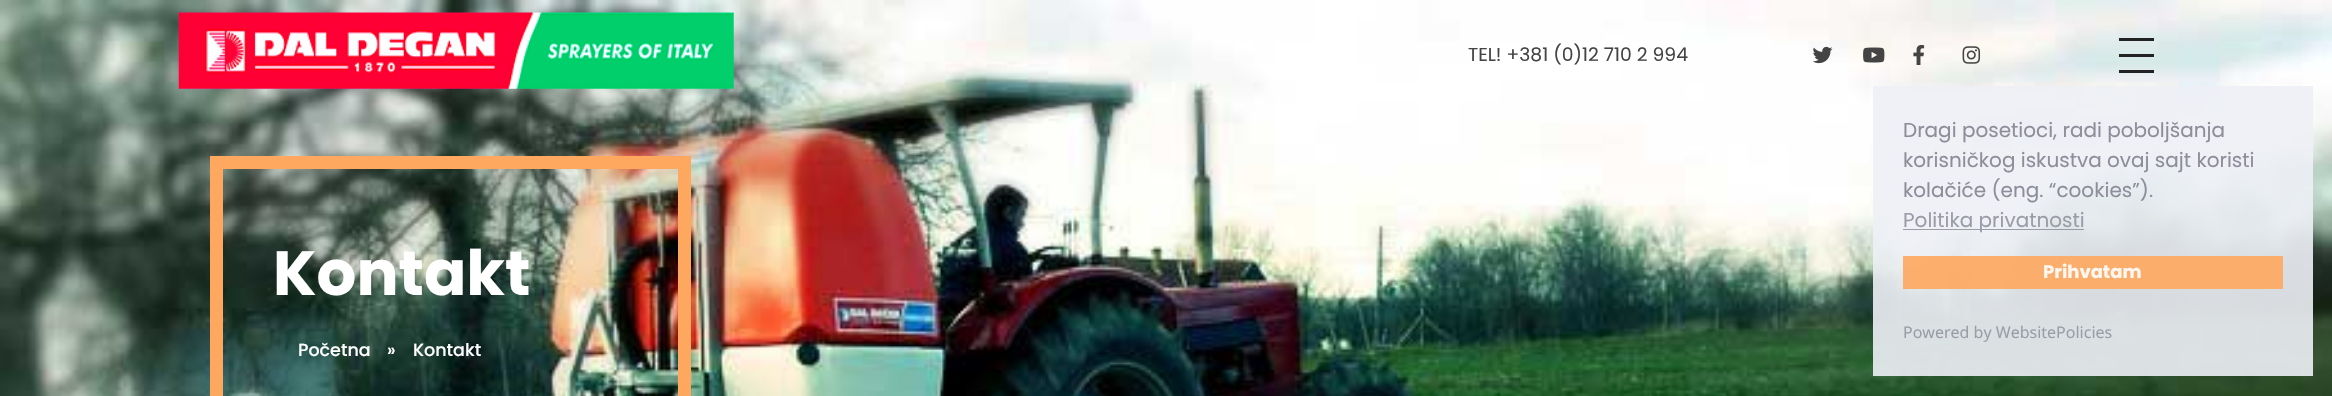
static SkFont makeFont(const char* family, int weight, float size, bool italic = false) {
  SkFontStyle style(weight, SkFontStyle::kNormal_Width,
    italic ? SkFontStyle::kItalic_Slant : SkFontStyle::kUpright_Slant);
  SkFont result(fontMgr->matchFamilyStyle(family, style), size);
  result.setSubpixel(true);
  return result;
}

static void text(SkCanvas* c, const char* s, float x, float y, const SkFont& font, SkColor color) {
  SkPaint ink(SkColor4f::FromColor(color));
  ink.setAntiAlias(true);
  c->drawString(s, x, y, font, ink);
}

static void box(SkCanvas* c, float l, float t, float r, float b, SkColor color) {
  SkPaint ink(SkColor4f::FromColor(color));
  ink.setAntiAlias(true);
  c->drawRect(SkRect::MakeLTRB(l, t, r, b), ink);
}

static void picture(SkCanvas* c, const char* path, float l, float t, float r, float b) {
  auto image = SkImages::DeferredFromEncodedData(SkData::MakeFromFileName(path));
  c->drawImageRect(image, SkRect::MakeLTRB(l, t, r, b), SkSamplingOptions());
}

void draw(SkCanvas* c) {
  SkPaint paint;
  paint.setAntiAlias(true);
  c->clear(0xffffffff);
  picture(c, "img_06.png", 0, 0, 2332, 396);
  picture(c, "img_01.png", 178, 12, 734, 89);
  SkFont face1 = makeFont("Poppins", 400, 18.75f);
  text(c, "TEL! +381 (0)12 710 2 994", 1468, 61, face1, 0xff444444);
  picture(c, "img_02.png", 1813, 46, 1833, 64);
  picture(c, "img_03.png", 1863, 47, 1885, 63);
  picture(c, "img_04.png", 1913, 45, 1925, 65);
  picture(c, "img_05.png", 1962, 46, 1981, 64);
  box(c, 2119, 38, 2154, 41, 0xff222222);
  box(c, 2119, 54, 2154, 57, 0xff222222);
  box(c, 2119, 70, 2154, 73, 0xff222222);
  paint.setStyle(SkPaint::kStroke_Style);
  paint.setStrokeWidth(13);
  paint.setColor(0xfffea75e);
  c->drawRect(SkRect::MakeLTRB(216.5f, 162.5f, 684.5f, 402.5f), paint);
  SkFont face2 = makeFont("Poppins", 700, 62.5f);
  text(c, "Kontakt", 273, 295, face2, 0xffffffff);
  SkFont face3 = makeFont("Poppins", 500, 17.5f);
  text(c, "Početna", 298, 356, face3, 0xffffffff);
  text(c, "»", 387, 356, face3, 0xffffffff);
  text(c, "Kontakt", 413, 356, face3, 0xffffffff);
  box(c, 1873, 86, 2313, 376, 0xe6edeff5);
  SkFont face4 = makeFont("Poppins", 400, 20);
  text(c, "Dragi posetioci, radi poboljšanja", 1903, 137, face4, 0xff8e8e9b);
  text(c, "korisničkog iskustva ovaj sajt koristi", 1903, 167, face4, 0xff8e8e9b);
  text(c, "kolačiće (eng. “cookies”).", 1903, 197, face4, 0xff8e8e9b);
  box(c, 1903, 229, 2084, 230, 0xc4838391);
  text(c, "Politika privatnosti", 1903, 227, face4, 0xff9b9ca8);
  box(c, 1903, 256, 2283, 289, 0xe6fea75e);
  SkFont face5 = makeFont("Poppins", 700, 18);
  text(c, "Prihvatam", 2043, 278, face5, 0xfffff7f0);
  SkFont face6 = makeFont("Noto Sans", 400, 16);
  text(c, "Powered by WebsitePolicies", 1903, 338, face6, 0xff9b9ca8);
}
